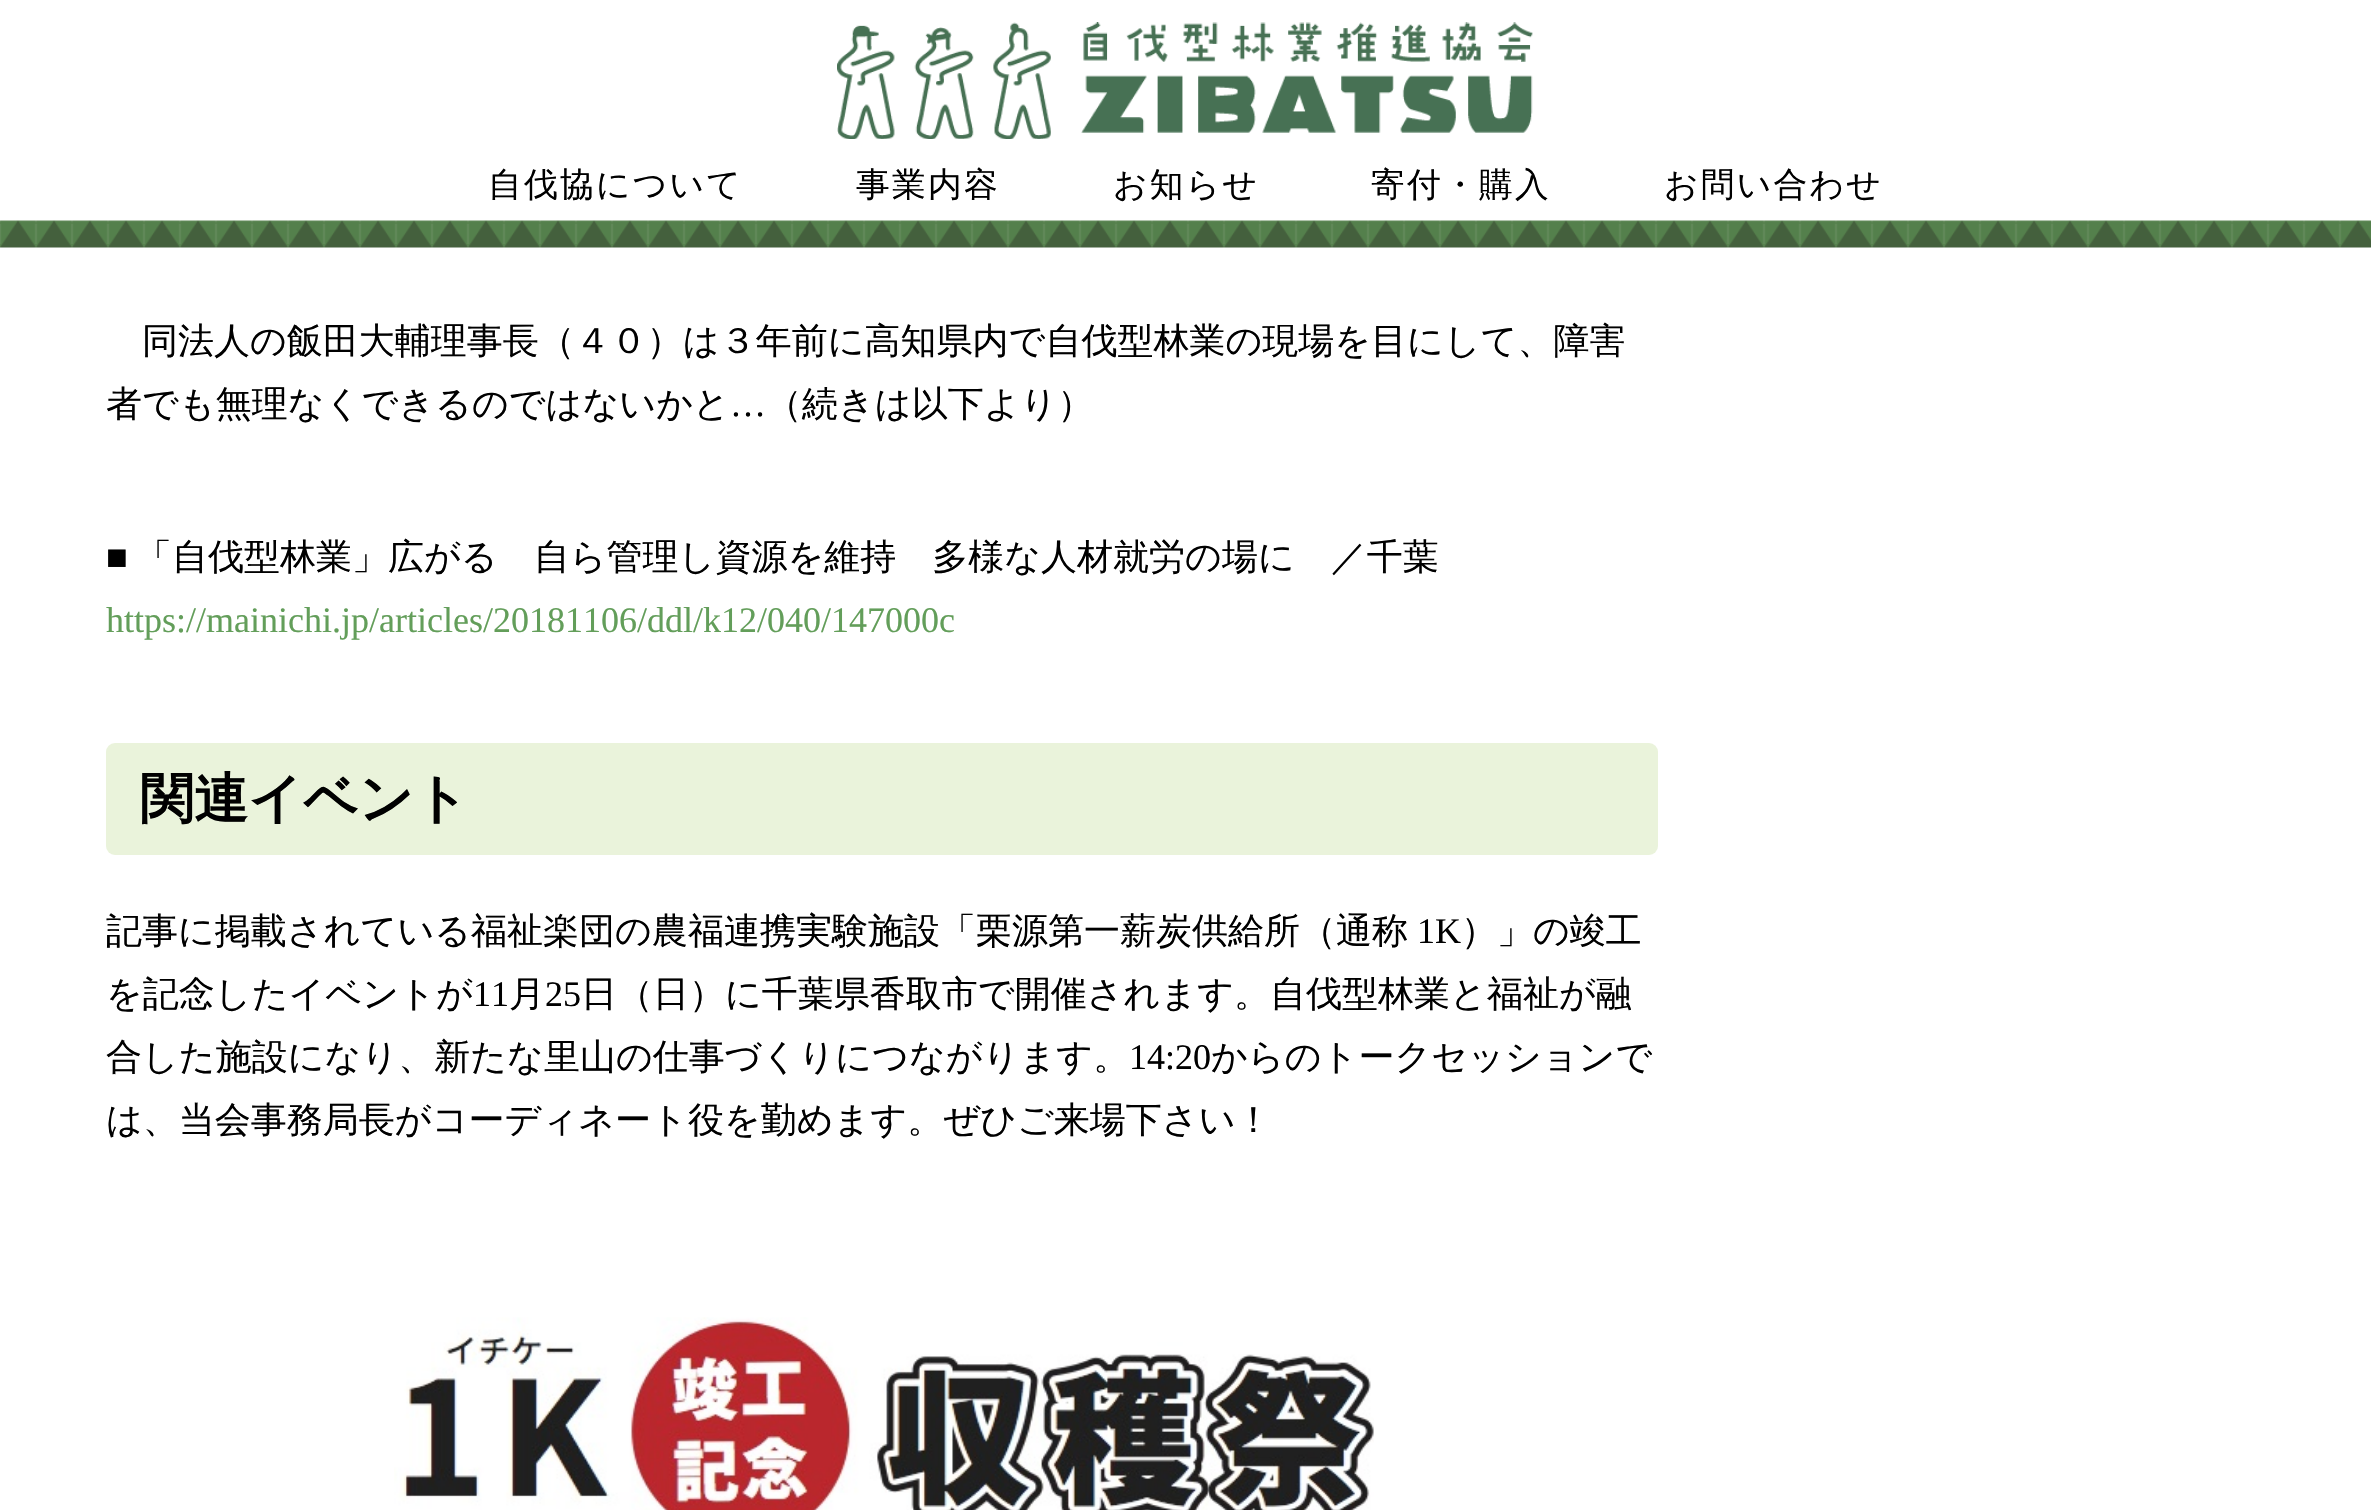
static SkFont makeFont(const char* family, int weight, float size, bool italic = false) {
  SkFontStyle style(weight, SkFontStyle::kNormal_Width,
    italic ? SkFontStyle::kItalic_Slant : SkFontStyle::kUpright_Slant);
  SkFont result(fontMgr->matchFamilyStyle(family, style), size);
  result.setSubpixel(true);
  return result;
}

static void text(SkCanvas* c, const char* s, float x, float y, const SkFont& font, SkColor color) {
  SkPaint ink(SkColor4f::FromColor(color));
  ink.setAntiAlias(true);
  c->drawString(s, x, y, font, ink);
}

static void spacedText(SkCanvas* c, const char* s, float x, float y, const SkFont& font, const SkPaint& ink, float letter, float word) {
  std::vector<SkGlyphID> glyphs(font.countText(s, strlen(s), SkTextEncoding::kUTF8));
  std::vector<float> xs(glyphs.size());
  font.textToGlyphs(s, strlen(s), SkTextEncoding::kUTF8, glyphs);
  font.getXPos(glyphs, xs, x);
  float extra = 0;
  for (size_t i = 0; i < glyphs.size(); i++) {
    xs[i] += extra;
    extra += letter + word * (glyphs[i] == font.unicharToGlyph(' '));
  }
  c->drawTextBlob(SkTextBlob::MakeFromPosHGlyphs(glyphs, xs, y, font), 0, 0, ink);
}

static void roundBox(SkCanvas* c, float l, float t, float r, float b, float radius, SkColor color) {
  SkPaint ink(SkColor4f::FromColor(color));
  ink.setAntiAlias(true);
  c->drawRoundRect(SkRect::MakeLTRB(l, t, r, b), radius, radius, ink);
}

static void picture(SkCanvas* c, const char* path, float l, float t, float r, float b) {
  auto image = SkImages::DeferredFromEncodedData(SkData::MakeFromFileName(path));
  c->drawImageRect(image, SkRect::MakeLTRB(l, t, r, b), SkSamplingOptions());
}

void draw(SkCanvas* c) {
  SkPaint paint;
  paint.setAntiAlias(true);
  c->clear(0xffffffff);
  picture(c, "img_01.png", 837, 22, 1533, 139);
  SkFont face1 = makeFont("WenQuanYi Zen Hei", 500, 33.75f);
  paint.setColor(0xff000000);
  spacedText(c, "自伐協について", 488, 196, face1, paint, 2.25f, 0);
  spacedText(c, "事業内容", 856, 196, face1, paint, 2.25f, 0);
  spacedText(c, "お知らせ", 1113, 196, face1, paint, 2.25f, 0);
  spacedText(c, "寄付・購入", 1371, 196, face1, paint, 2.25f, 0);
  spacedText(c, "お問い合わせ", 1664, 196, face1, paint, 2.25f, 0);
  picture(c, "img_02.png", 0, 220, 2371, 248);
  SkFont face2 = makeFont("WenQuanYi Zen Hei", 500, 36);
  text(c, "同法人の飯田大輔理事長（４０）は３年前に高知県内で自伐型林業の現場を目にして、障害", 142, 353, face2, 0xff000000);
  text(c, "者でも無理なくできるのではないかと", 106, 416, face2, 0xff000000);
  SkFont face3 = makeFont("Liberation Serif", 400, 36);
  text(c, "…", 730, 416, face3, 0xff000000);
  text(c, "（続きは以下より）", 766, 416, face2, 0xff000000);
  text(c, "■", 106, 569, face3, 0xff000000);
  text(c, "「自伐型林業」広がる　自ら管理し資源を維持　多様な人材就労の場に　／千葉", 136, 569, face2, 0xff000000);
  text(c, "https://mainichi.jp/articles/20181106/ddl/k12/040/147000c", 106, 632, face3, 0xff639e5a);
  roundBox(c, 106, 743, 1658, 855, 9, 0xffeaf3db);
  SkFont face4 = makeFont("WenQuanYi Zen Hei", 700, 54);
  text(c, "関連イベント", 140, 817, face4, 0xff000000);
  text(c, "記事に掲載されている福祉楽団の農福連携実験施設「栗源第一薪炭供給所（通称", 106, 943, face2, 0xff000000);
  text(c, "1K", 1417, 943, face3, 0xff000000);
  text(c, "）」の竣工", 1461, 943, face2, 0xff000000);
  text(c, "を記念したイベントが", 106, 1006, face2, 0xff000000);
  text(c, "11", 473, 1006, face3, 0xff000000);
  text(c, "月", 509, 1006, face2, 0xff000000);
  text(c, "25", 545, 1006, face3, 0xff000000);
  text(c, "日（日）に千葉県香取市で開催されます。自伐型林業と福祉が融", 581, 1006, face2, 0xff000000);
  text(c, "合した施設になり、新たな里山の仕事づくりにつながります。", 106, 1069, face2, 0xff000000);
  text(c, "14:20", 1129, 1069, face3, 0xff000000);
  text(c, "からのトークセッションで", 1211, 1069, face2, 0xff000000);
  text(c, "は、当会事務局長がコーディネート役を勤めます。ぜひご来場下さい！", 106, 1132, face2, 0xff000000);
  picture(c, "img_03.png", 394, 1317, 1374, 1510);
}
